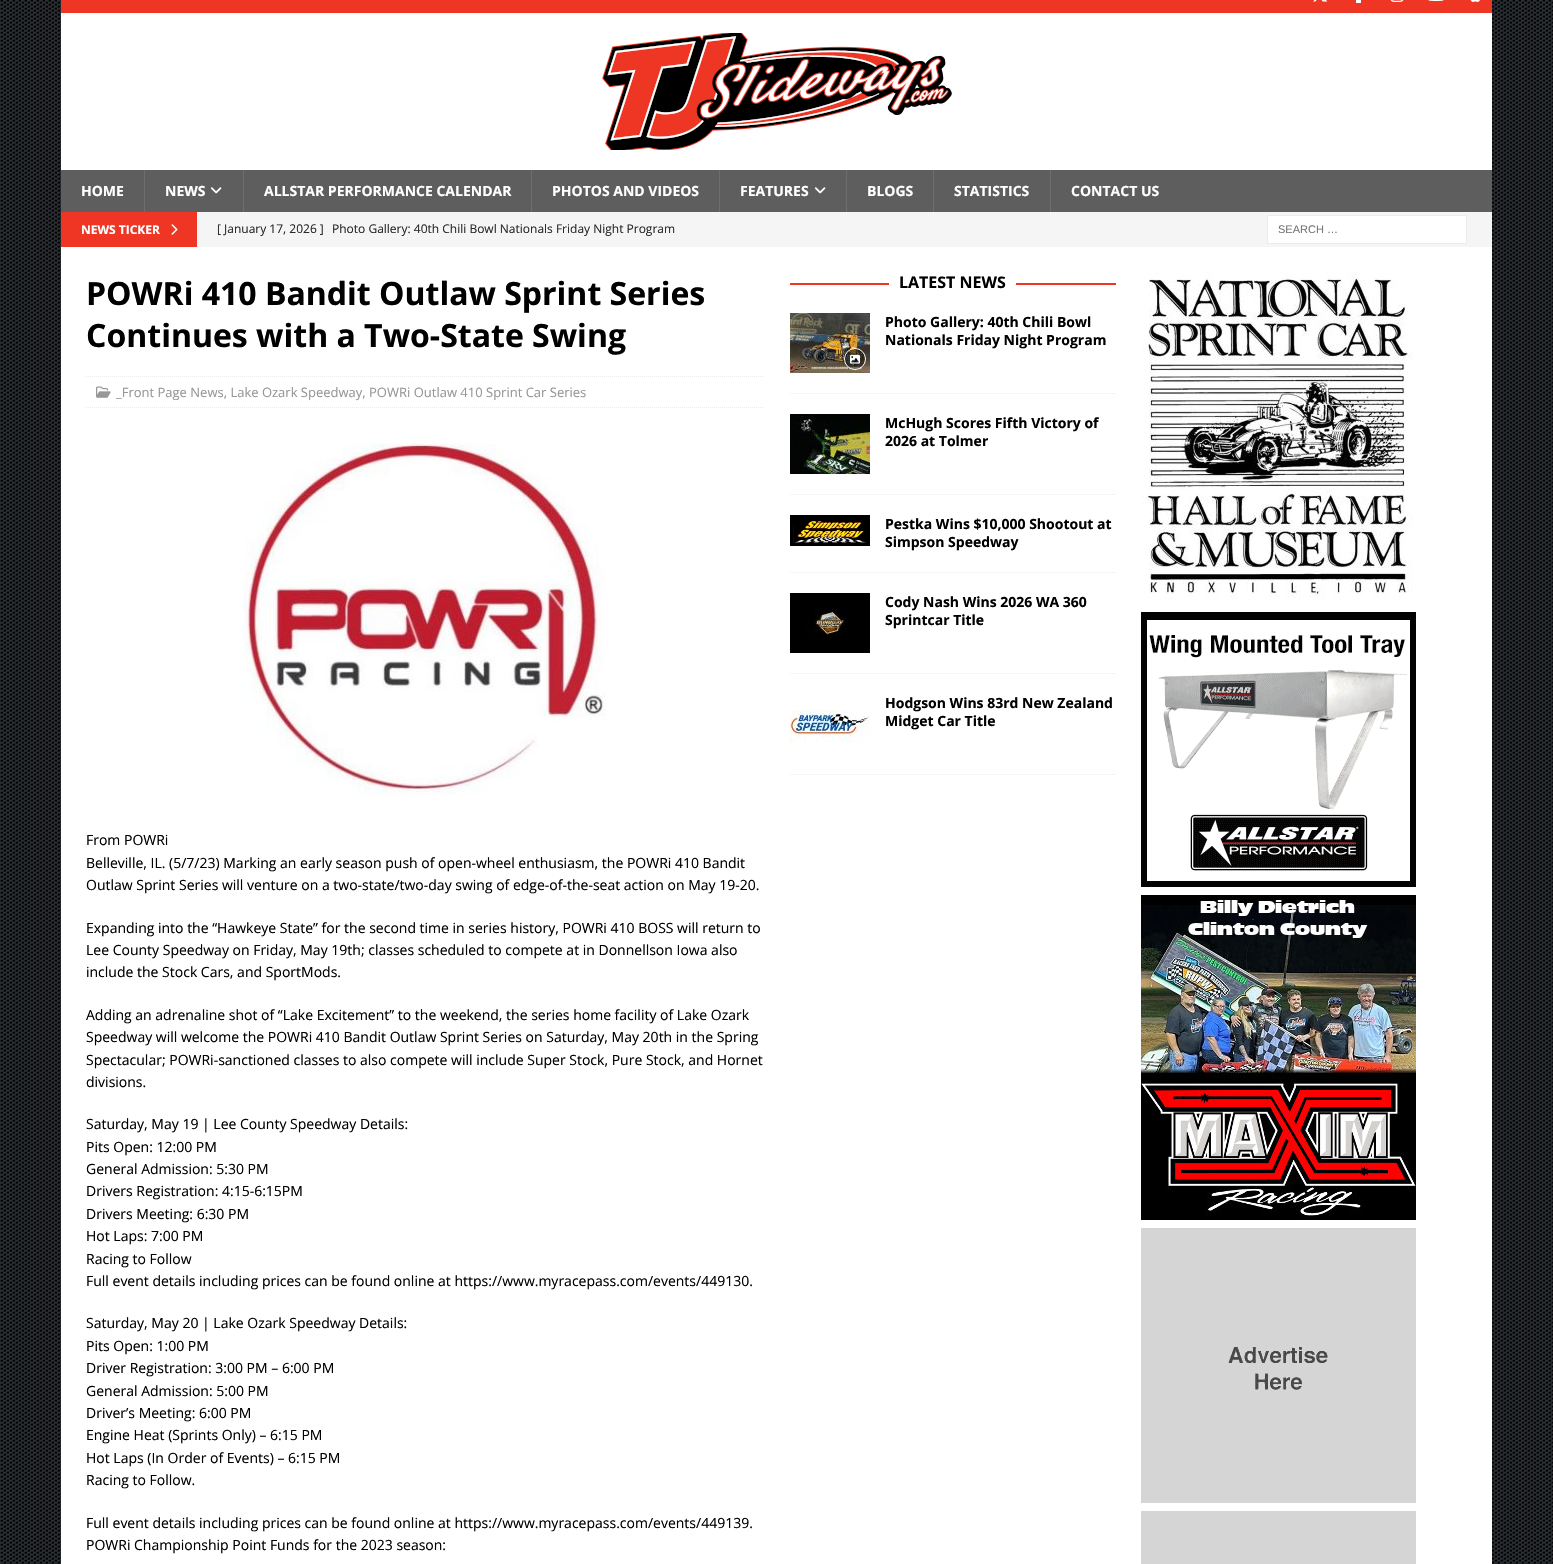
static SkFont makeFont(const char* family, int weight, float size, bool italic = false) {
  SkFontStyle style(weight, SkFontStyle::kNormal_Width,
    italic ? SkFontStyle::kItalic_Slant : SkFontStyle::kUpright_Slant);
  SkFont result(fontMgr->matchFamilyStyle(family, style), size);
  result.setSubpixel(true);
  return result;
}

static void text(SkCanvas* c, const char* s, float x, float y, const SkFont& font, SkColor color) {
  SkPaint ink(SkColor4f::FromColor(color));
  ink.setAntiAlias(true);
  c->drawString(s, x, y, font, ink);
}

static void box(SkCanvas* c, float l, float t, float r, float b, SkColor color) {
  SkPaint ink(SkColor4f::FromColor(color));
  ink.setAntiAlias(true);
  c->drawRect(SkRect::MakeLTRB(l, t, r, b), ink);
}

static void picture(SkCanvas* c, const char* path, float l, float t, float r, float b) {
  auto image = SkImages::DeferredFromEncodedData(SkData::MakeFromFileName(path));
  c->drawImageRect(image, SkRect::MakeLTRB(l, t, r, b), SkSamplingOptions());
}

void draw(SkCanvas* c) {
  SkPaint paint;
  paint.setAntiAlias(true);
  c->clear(0xffffffff);
  picture(c, "img_01.png", 0, 0, 1553, 1564);
  box(c, 61, 0, 1492, 13, 0xffef3624);
  picture(c, "img_02.png", 1313, 0, 1328, 2);
  box(c, 1356, 0, 1361, 3, 0xffffffff);
  picture(c, "img_03.png", 1390, 0, 1404, 2);
  picture(c, "img_04.png", 1428, 0, 1444, 1);
  picture(c, "img_05.png", 1470, 0, 1480, 2);
  box(c, 61, 13, 1492, 170, 0xffffffff);
  picture(c, "img_06.png", 602, 33, 952, 150);
  box(c, 61, 170, 1492, 212, 0xff5e5e5e);
  SkFont face1 = makeFont("Open Sans", 700, 14);
  text(c, "HOME", 81, 196, face1, 0xffffffff);
  box(c, 144, 170, 145, 212, 0xff6e6e6e);
  text(c, "NEWS", 165, 196, face1, 0xffffffff);
  picture(c, "img_07.png", 210, 187, 222, 194);
  box(c, 243, 170, 244, 212, 0xff6e6e6e);
  text(c, "ALLSTAR PERFORMANCE CALENDAR", 264, 196, face1, 0xffffffff);
  box(c, 531, 170, 532, 212, 0xff6e6e6e);
  text(c, "PHOTOS AND VIDEOS", 552, 196, face1, 0xffffffff);
  box(c, 719, 170, 720, 212, 0xff6e6e6e);
  text(c, "FEATURES", 740, 196, face1, 0xffffffff);
  picture(c, "img_07.png", 814, 187, 826, 194);
  box(c, 846, 170, 847, 212, 0xff6e6e6e);
  text(c, "BLOGS", 867, 196, face1, 0xffffffff);
  box(c, 933, 170, 934, 212, 0xff6e6e6e);
  text(c, "STATISTICS", 954, 196, face1, 0xffffffff);
  box(c, 1050, 170, 1051, 212, 0xff6e6e6e);
  text(c, "CONTACT US", 1071, 196, face1, 0xffffffff);
  box(c, 197, 212, 1492, 247, 0xfff5f5f5);
  box(c, 61, 212, 197, 247, 0xffef3624);
  SkFont face2 = makeFont("Open Sans", 700, 12);
  text(c, "NEWS TICKER", 81, 234, face2, 0xffffffff);
  picture(c, "img_08.png", 171, 224, 178, 235);
  SkFont face3 = makeFont("Open Sans", 400, 12);
  text(c, "[ January 17, 2026 ]", 217, 233, face3, 0xff2a2a2a);
  text(c, "Photo Gallery: 40th Chili Bowl Nationals Friday Night Program", 332, 233, face3, 0xff2a2a2a);
  paint.setColor(0xffffffff);
  c->drawRect(SkRect::MakeLTRB(1267.5f, 215.5f, 1466.5f, 243.5f), paint);
  paint.setStyle(SkPaint::kStroke_Style);
  paint.setStrokeWidth(1);
  paint.setColor(0xffebebeb);
  c->drawRect(SkRect::MakeLTRB(1267.5f, 215.5f, 1466.5f, 243.5f), paint);
  SkFont face4 = makeFont("Liberation Sans", 400, 11);
  text(c, "SEARCH …", 1278, 233, face4, 0xff757575);
  box(c, 61, 247, 1492, 1564, 0xffffffff);
  SkFont face5 = makeFont("Open Sans", 700, 32);
  text(c, "POWRi 410 Bandit Outlaw Sprint Series", 86, 305, face5, 0xff000000);
  text(c, "Continues with a Two-State Swing", 86, 347, face5, 0xff000000);
  paint.setPathEffect(SkDashPathEffect::Make({{1, 1}}, 0));
  c->drawPath(SkPathBuilder().moveTo(86, 376.5f).lineTo(764, 376.5f).detach(), paint);
  paint.setPathEffect(nullptr);
  paint.setPathEffect(SkDashPathEffect::Make({{1, 1}}, 0));
  c->drawPath(SkPathBuilder().moveTo(86, 407.5f).lineTo(764, 407.5f).detach(), paint);
  paint.setPathEffect(nullptr);
  picture(c, "img_09.png", 96, 386, 111, 398);
  SkFont face6 = makeFont("Open Sans", 400, 13);
  text(c, "_Front Page News, Lake Ozark Speedway, POWRi Outlaw 410 Sprint Car Series", 116, 397, face6, 0xff979797);
  picture(c, "img_10.png", 242, 443, 606, 796);
  SkFont face7 = makeFont("Open Sans", 400, 14);
  text(c, "From POWRi", 86, 845, face7, 0xff000000);
  text(c, "Belleville, IL. (5/7/23) Marking an early season push of open-wheel enthusiasm, the POWRi 410 Bandit", 86, 868, face7, 0xff000000);
  text(c, "Outlaw Sprint Series will venture on a two-state/two-day swing of edge-of-the-seat action on May 19-20.", 86, 890, face7, 0xff000000);
  text(c, "Expanding into the “Hawkeye State” for the second time in series history, POWRi 410 BOSS will return to", 86, 933, face7, 0xff000000);
  text(c, "Lee County Speedway on Friday, May 19th; classes scheduled to compete at in Donnellson Iowa also", 86, 955, face7, 0xff000000);
  text(c, "include the Stock Cars, and SportMods.", 86, 977, face7, 0xff000000);
  text(c, "Adding an adrenaline shot of “Lake Excitement” to the weekend, the series home facility of Lake Ozark", 86, 1020, face7, 0xff000000);
  text(c, "Speedway will welcome the POWRi 410 Bandit Outlaw Sprint Series on Saturday, May 20th in the Spring", 86, 1042, face7, 0xff000000);
  text(c, "Spectacular; POWRi-sanctioned classes to also compete will include Super Stock, Pure Stock, and Hornet", 86, 1065, face7, 0xff000000);
  text(c, "divisions.", 86, 1087, face7, 0xff000000);
  text(c, "Saturday, May 19 | Lee County Speedway Details:", 86, 1129, face7, 0xff000000);
  text(c, "Pits Open: 12:00 PM", 86, 1152, face7, 0xff000000);
  text(c, "General Admission: 5:30 PM", 86, 1174, face7, 0xff000000);
  text(c, "Drivers Registration: 4:15-6:15PM", 86, 1196, face7, 0xff000000);
  text(c, "Drivers Meeting: 6:30 PM", 86, 1219, face7, 0xff000000);
  text(c, "Hot Laps: 7:00 PM", 86, 1241, face7, 0xff000000);
  text(c, "Racing to Follow", 86, 1264, face7, 0xff000000);
  text(c, "Full event details including prices can be found online at https://www.myracepass.com/events/449130.", 86, 1286, face7, 0xff000000);
  text(c, "Saturday, May 20 | Lake Ozark Speedway Details:", 86, 1328, face7, 0xff000000);
  text(c, "Pits Open: 1:00 PM", 86, 1351, face7, 0xff000000);
  text(c, "Driver Registration: 3:00 PM – 6:00 PM", 86, 1373, face7, 0xff000000);
  text(c, "General Admission: 5:00 PM", 86, 1396, face7, 0xff000000);
  text(c, "Driver’s Meeting: 6:00 PM", 86, 1418, face7, 0xff000000);
  text(c, "Engine Heat (Sprints Only) – 6:15 PM", 86, 1440, face7, 0xff000000);
  text(c, "Hot Laps (In Order of Events) – 6:15 PM", 86, 1463, face7, 0xff000000);
  text(c, "Racing to Follow.", 86, 1485, face7, 0xff000000);
  text(c, "Full event details including prices can be found online at https://www.myracepass.com/events/449139.", 86, 1528, face7, 0xff000000);
  text(c, "POWRi Championship Point Funds for the 2023 season:", 86, 1550, face7, 0xff000000);
  box(c, 790, 283, 1116, 285, 0xffef3624);
  box(c, 889, 283, 1016, 285, 0xffffffff);
  SkFont face8 = makeFont("Open Sans", 700, 16);
  text(c, "LATEST NEWS", 899, 288, face8, 0xff000000);
  paint.setPathEffect(SkDashPathEffect::Make({{1, 1}}, 0));
  c->drawPath(SkPathBuilder().moveTo(790, 393.5f).lineTo(1116, 393.5f).detach(), paint);
  paint.setPathEffect(nullptr);
  picture(c, "img_11.png", 790, 313, 870, 373);
  paint.setStyle(SkPaint::kFill_Style);
  paint.setColor(0x66000000);
  c->drawCircle(855, 359, 10.5f, paint);
  paint.setStyle(SkPaint::kStroke_Style);
  paint.setColor(0xffffffff);
  c->drawCircle(855, 359, 10.5f, paint);
  picture(c, "img_12.png", 850, 354, 860, 364);
  text(c, "Photo Gallery: 40th Chili Bowl", 885, 327, face1, 0xff000000);
  text(c, "Nationals Friday Night Program", 885, 345, face1, 0xff000000);
  paint.setColor(0xffebebeb);
  paint.setPathEffect(SkDashPathEffect::Make({{1, 1}}, 0));
  c->drawPath(SkPathBuilder().moveTo(790, 494.5f).lineTo(1116, 494.5f).detach(), paint);
  paint.setPathEffect(nullptr);
  picture(c, "img_13.png", 790, 414, 870, 474);
  text(c, "McHugh Scores Fifth Victory of", 885, 428, face1, 0xff000000);
  text(c, "2026 at Tolmer", 885, 446, face1, 0xff000000);
  paint.setPathEffect(SkDashPathEffect::Make({{1, 1}}, 0));
  c->drawPath(SkPathBuilder().moveTo(790, 572.5f).lineTo(1116, 572.5f).detach(), paint);
  paint.setPathEffect(nullptr);
  picture(c, "img_14.png", 790, 515, 870, 546);
  text(c, "Pestka Wins $10,000 Shootout at", 885, 529, face1, 0xff000000);
  text(c, "Simpson Speedway", 885, 547, face1, 0xff000000);
  paint.setPathEffect(SkDashPathEffect::Make({{1, 1}}, 0));
  c->drawPath(SkPathBuilder().moveTo(790, 673.5f).lineTo(1116, 673.5f).detach(), paint);
  paint.setPathEffect(nullptr);
  picture(c, "img_15.png", 790, 593, 870, 653);
  text(c, "Cody Nash Wins 2026 WA 360", 885, 607, face1, 0xff000000);
  text(c, "Sprintcar Title", 885, 625, face1, 0xff000000);
  paint.setPathEffect(SkDashPathEffect::Make({{1, 1}}, 0));
  c->drawPath(SkPathBuilder().moveTo(790, 774.5f).lineTo(1116, 774.5f).detach(), paint);
  paint.setPathEffect(nullptr);
  picture(c, "img_16.png", 790, 710, 870, 743);
  text(c, "Hodgson Wins 83rd New Zealand", 885, 708, face1, 0xff000000);
  text(c, "Midget Car Title", 885, 726, face1, 0xff000000);
  picture(c, "img_17.png", 1142, 272, 1413, 600);
  picture(c, "img_18.png", 1141, 612, 1416, 887);
  picture(c, "img_19.png", 1141, 895, 1416, 1220);
  picture(c, "img_20.png", 1141, 1228, 1416, 1503);
  box(c, 1141, 1511, 1416, 1564, 0xffd5d5d5);
}
